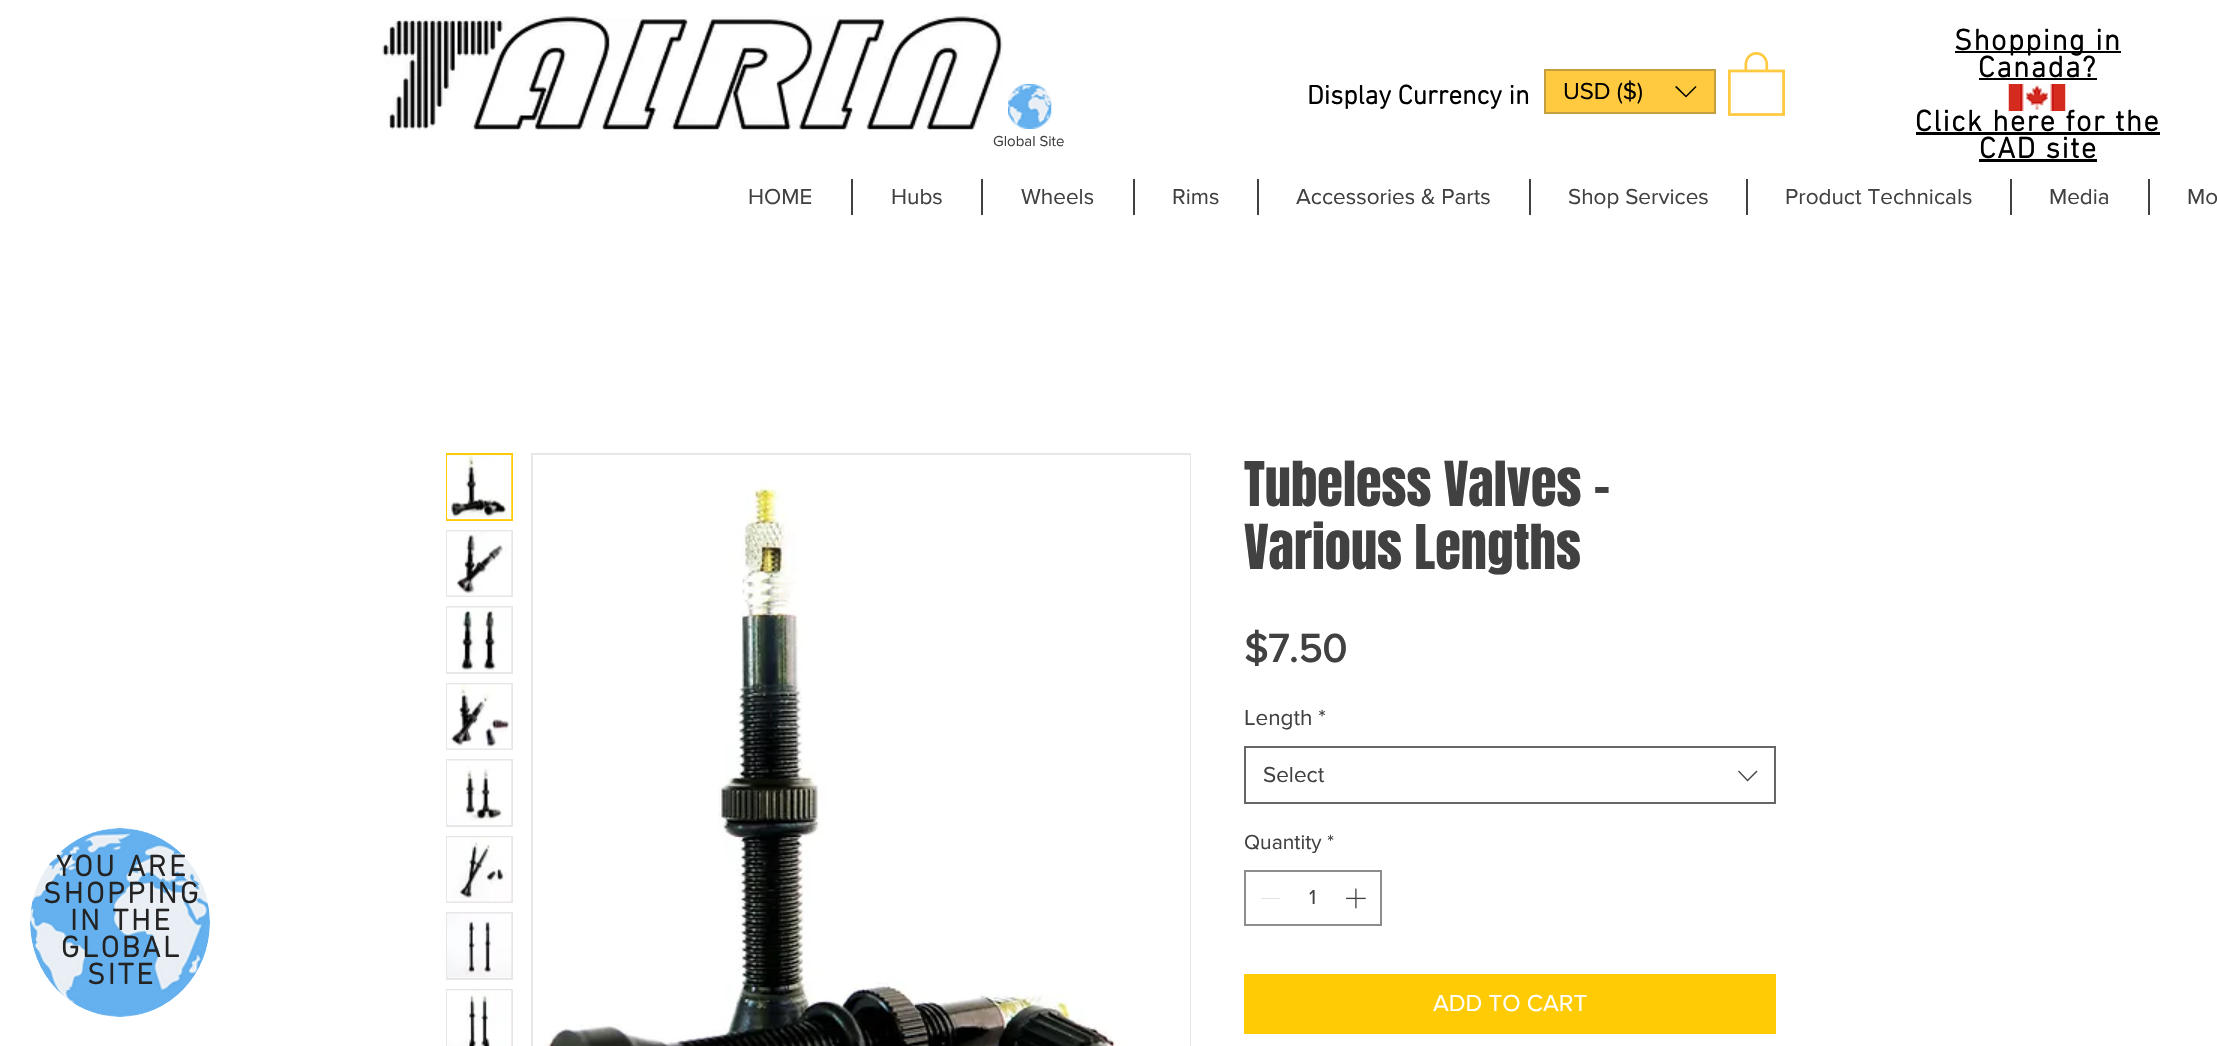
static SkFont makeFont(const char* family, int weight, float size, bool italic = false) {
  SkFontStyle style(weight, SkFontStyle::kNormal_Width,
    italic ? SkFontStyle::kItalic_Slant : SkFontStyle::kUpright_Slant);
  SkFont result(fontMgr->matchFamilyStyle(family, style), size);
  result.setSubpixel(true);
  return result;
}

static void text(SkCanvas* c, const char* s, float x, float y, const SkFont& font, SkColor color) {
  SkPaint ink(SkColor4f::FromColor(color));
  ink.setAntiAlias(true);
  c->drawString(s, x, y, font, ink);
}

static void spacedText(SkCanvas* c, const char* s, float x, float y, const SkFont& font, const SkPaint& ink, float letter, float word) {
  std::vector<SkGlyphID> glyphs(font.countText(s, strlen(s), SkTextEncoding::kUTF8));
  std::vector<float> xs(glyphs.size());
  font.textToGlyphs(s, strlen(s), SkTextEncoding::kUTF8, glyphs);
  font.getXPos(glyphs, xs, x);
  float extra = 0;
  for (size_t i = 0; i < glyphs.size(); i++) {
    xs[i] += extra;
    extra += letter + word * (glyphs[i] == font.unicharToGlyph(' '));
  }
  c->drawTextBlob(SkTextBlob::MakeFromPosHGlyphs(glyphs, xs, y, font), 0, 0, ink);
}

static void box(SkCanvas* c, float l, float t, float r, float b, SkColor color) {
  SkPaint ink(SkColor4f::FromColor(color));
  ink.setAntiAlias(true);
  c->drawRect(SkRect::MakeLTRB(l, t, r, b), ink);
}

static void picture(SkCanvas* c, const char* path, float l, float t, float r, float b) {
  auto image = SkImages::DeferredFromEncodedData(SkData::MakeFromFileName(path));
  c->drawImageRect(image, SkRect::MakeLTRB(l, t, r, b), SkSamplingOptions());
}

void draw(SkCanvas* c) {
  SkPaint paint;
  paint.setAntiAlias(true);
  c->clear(0xffffffff);
  picture(c, "img_01.png", 381, 15, 1003, 130);
  picture(c, "img_02.png", 1008, 84, 1052, 129);
  SkFont face1 = makeFont("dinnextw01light", 700, 27);
  text(c, "Display Currency in", 1307, 104, face1, 0xff000000);
  paint.setColor(0xffffc940);
  c->drawRect(SkRect::MakeLTRB(1545, 70, 1715, 113), paint);
  paint.setStyle(SkPaint::kStroke_Style);
  paint.setStrokeWidth(2);
  paint.setColor(0xffc49f40);
  c->drawRect(SkRect::MakeLTRB(1545, 70, 1715, 113), paint);
  SkFont face2 = makeFont("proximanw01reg", 400, 24);
  text(c, "USD ($)", 1563, 99, face2, 0xff000000);
  paint.setStyle(SkPaint::kFill_Style);
  paint.setColor(0xff000000);
  c->drawPath(SkPathBuilder(SkPathFillType::kEvenOdd).moveTo(1695.5f, 86).lineTo(1696.5f, 87).lineTo(1686, 97.5f).lineTo(1675, 87).lineTo(1676.5f, 86).lineTo(1686, 95.5f).close().detach(), paint);
  picture(c, "img_03.png", 1728, 52, 1785, 116);
  box(c, 1955, 51, 2121, 53, 0xff000000);
  SkFont face3 = makeFont("dinnextw01light", 700, 30);
  spacedText(c, "Shopping in", 1954, 50, face3, paint, 1.5f, 0);
  spacedText(c, "Canada?", 1978, 77, face3, paint, 1.5f, 0);
  box(c, 1979, 78, 2097, 80, 0xff000000);
  spacedText(c, "Click here for the", 1915, 131, face3, paint, 1.5f, 0);
  box(c, 1916, 132, 2160, 135, 0xff000000);
  spacedText(c, "CAD site", 1979, 158, face3, paint, 1.5f, 0);
  box(c, 1979, 159, 2097, 162, 0xff000000);
  picture(c, "img_04.png", 2008, 84, 2066, 111);
  SkFont face4 = makeFont("proximanw01reg", 400, 15);
  text(c, "Global Site", 993, 146, face4, 0xff414141);
  SkFont face5 = makeFont("proximanw01reg", 400, 22.5f);
  text(c, "HOME", 748, 204, face5, 0xff414141);
  box(c, 851, 179, 853, 215, 0xff414141);
  text(c, "Hubs", 891, 204, face5, 0xff414141);
  box(c, 981, 179, 983, 215, 0xff414141);
  text(c, "Wheels", 1021, 204, face5, 0xff414141);
  box(c, 1133, 179, 1135, 215, 0xff414141);
  text(c, "Rims", 1172, 204, face5, 0xff414141);
  box(c, 1257, 179, 1259, 215, 0xff414141);
  text(c, "Accessories & Parts", 1296, 204, face5, 0xff414141);
  box(c, 1529, 179, 1531, 215, 0xff414141);
  text(c, "Shop Services", 1568, 204, face5, 0xff414141);
  box(c, 1746, 179, 1748, 215, 0xff414141);
  text(c, "Product Technicals", 1785, 204, face5, 0xff414141);
  box(c, 2010, 179, 2012, 215, 0xff414141);
  text(c, "Media", 2049, 204, face5, 0xff414141);
  box(c, 2148, 179, 2150, 215, 0xff414141);
  text(c, "Mo", 2187, 204, face5, 0xff414141);
  picture(c, "img_05.png", 30, 828, 210, 1017);
  paint.setColor(0xff242323);
  spacedText(c, "YOU ARE", 56, 876, face3, paint, 2.75f, 0);
  spacedText(c, "SHOPPING", 43, 903, face3, paint, 2.75f, 0);
  spacedText(c, "IN THE", 70, 930, face3, paint, 2.75f, 0);
  spacedText(c, "GLOBAL", 61, 957, face3, paint, 2.75f, 0);
  spacedText(c, "SITE", 87, 984, face3, paint, 2.75f, 0);
  paint.setStyle(SkPaint::kStroke_Style);
  paint.setColor(0xffffcb05);
  c->drawRect(SkRect::MakeLTRB(447, 454, 512, 520), paint);
  picture(c, "img_06.png", 447, 455, 512, 520);
  paint.setColor(0xffe8e6e6);
  c->drawRect(SkRect::MakeLTRB(447, 531, 512, 596), paint);
  picture(c, "img_07.png", 447, 531, 512, 596);
  c->drawRect(SkRect::MakeLTRB(447, 607, 512, 673), paint);
  picture(c, "img_08.png", 447, 607, 512, 672);
  c->drawRect(SkRect::MakeLTRB(447, 684, 512, 749), paint);
  picture(c, "img_09.png", 447, 684, 512, 749);
  c->drawRect(SkRect::MakeLTRB(447, 760, 512, 826), paint);
  picture(c, "img_10.png", 447, 760, 512, 825);
  c->drawRect(SkRect::MakeLTRB(447, 837, 512, 902), paint);
  picture(c, "img_11.png", 447, 837, 512, 902);
  c->drawRect(SkRect::MakeLTRB(447, 913, 512, 979), paint);
  picture(c, "img_12.png", 447, 913, 512, 978);
  c->drawRect(SkRect::MakeLTRB(447, 990, 512, 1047), paint);
  picture(c, "img_13.png", 447, 990, 512, 1046);
  c->drawRect(SkRect::MakeLTRB(532, 454, 1190, 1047), paint);
  picture(c, "img_14.png", 544, 455, 1190, 1046);
  SkFont face6 = makeFont("Anton", 400, 52.5f);
  text(c, "Tubeless Valves -", 1244, 506, face6, 0xff414141);
  text(c, "Various Lengths", 1244, 569, face6, 0xff414141);
  SkFont face7 = makeFont("proximanw01reg", 700, 40.5f);
  text(c, "$7.50", 1244, 662, face7, 0xff414141);
  text(c, "Length *", 1244, 725, face5, 0xff414141);
  paint.setColor(0xff666666);
  c->drawRect(SkRect::MakeLTRB(1245, 747, 1775, 803), paint);
  text(c, "Select", 1263, 782, face5, 0xff414141);
  paint.setStyle(SkPaint::kFill_Style);
  paint.setColor(0xff444444);
  c->drawPath(SkPathBuilder(SkPathFillType::kEvenOdd).moveTo(1756.5f, 770.5f).lineTo(1757.5f, 771.5f).lineTo(1747.5f, 781.5f).lineTo(1738, 771.5f).lineTo(1739, 770.5f).lineTo(1747.5f, 779.5f).close().detach(), paint);
  SkFont face8 = makeFont("proximanw01reg", 400, 21);
  text(c, "Quantity", 1244, 849, face8, 0xff414141);
  text(c, "*", 1327, 849, face8, 0xff414141);
  paint.setStyle(SkPaint::kStroke_Style);
  paint.setColor(0xff8d8d8d);
  c->drawRect(SkRect::MakeLTRB(1245, 871, 1381, 925), paint);
  box(c, 1261, 898, 1280, 899, 0xffe3e3e3);
  text(c, "1", 1309, 904, face8, 0xff414141);
  picture(c, "img_15.png", 1346, 888, 1366, 909);
  box(c, 1244, 974, 1776, 1034, 0xffffcb05);
  text(c, "ADD TO CART", 1433, 1011, face2, 0xffffffff);
}
